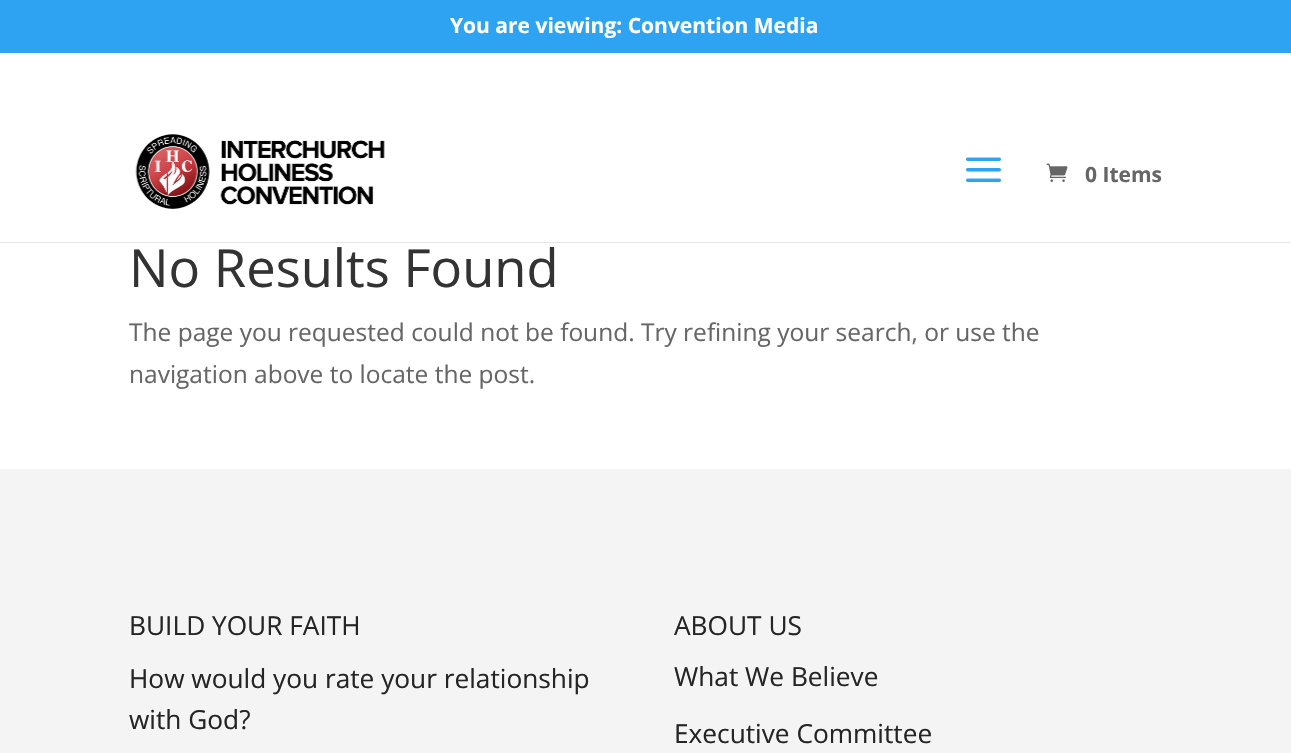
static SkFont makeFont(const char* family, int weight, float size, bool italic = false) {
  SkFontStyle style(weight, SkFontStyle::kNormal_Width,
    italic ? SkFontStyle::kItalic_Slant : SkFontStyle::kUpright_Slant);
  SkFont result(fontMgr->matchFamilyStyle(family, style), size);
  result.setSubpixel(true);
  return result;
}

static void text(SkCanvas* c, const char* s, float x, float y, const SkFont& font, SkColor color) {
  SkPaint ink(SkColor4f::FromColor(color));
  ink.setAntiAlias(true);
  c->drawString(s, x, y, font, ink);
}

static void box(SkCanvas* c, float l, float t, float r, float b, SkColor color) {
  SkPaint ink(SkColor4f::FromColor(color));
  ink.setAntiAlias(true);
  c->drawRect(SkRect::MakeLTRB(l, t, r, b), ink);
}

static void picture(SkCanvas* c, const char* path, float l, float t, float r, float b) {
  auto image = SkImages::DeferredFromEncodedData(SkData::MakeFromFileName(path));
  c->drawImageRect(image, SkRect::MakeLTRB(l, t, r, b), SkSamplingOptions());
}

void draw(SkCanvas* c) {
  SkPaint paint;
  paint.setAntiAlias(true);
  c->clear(0xffffffff);
  box(c, 0, 0, 1291, 53, 0xff2ea3f2);
  SkFont face1 = makeFont("Open Sans", 700, 21);
  text(c, "You are viewing: Convention Media", 450, 33, face1, 0xffffffff);
  paint.setColor(0xffe6e6e6);
  c->drawPath(SkPathBuilder().moveTo(0, 242).lineTo(0, 243).lineTo(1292, 243).lineTo(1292, 103).lineTo(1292, 242).close().detach(), paint);
  picture(c, "img_01.png", 135, 134, 385, 209);
  picture(c, "img_02.png", 966, 157, 1001, 182);
  picture(c, "img_03.png", 1046, 163, 1068, 182);
  text(c, "0 Items", 1085, 182, face1, 0xff666666);
  SkFont face2 = makeFont("Open Sans", 400, 52.5f);
  text(c, "No Results Found", 129, 287, face2, 0xff333333);
  SkFont face3 = makeFont("Open Sans", 400, 24.5f);
  text(c, "The page you requested could not be found. Try refining your search, or use the", 129, 341, face3, 0xff666666);
  text(c, "navigation above to locate the post.", 129, 383, face3, 0xff666666);
  box(c, 0, 469, 1291, 753, 0xfff4f4f4);
  SkFont face4 = makeFont("Open Sans", 400, 26.25f);
  text(c, "BUILD YOUR FAITH", 129, 635, face4, 0xff252525);
  text(c, "How would you rate your relationship", 129, 688, face4, 0xff252525);
  text(c, "with God?", 129, 729, face4, 0xff252525);
  text(c, "ABOUT US", 674, 635, face4, 0xff252525);
  text(c, "What We Believe", 674, 686, face4, 0xff252525);
  text(c, "Executive Committee", 674, 743, face4, 0xff252525);
}
